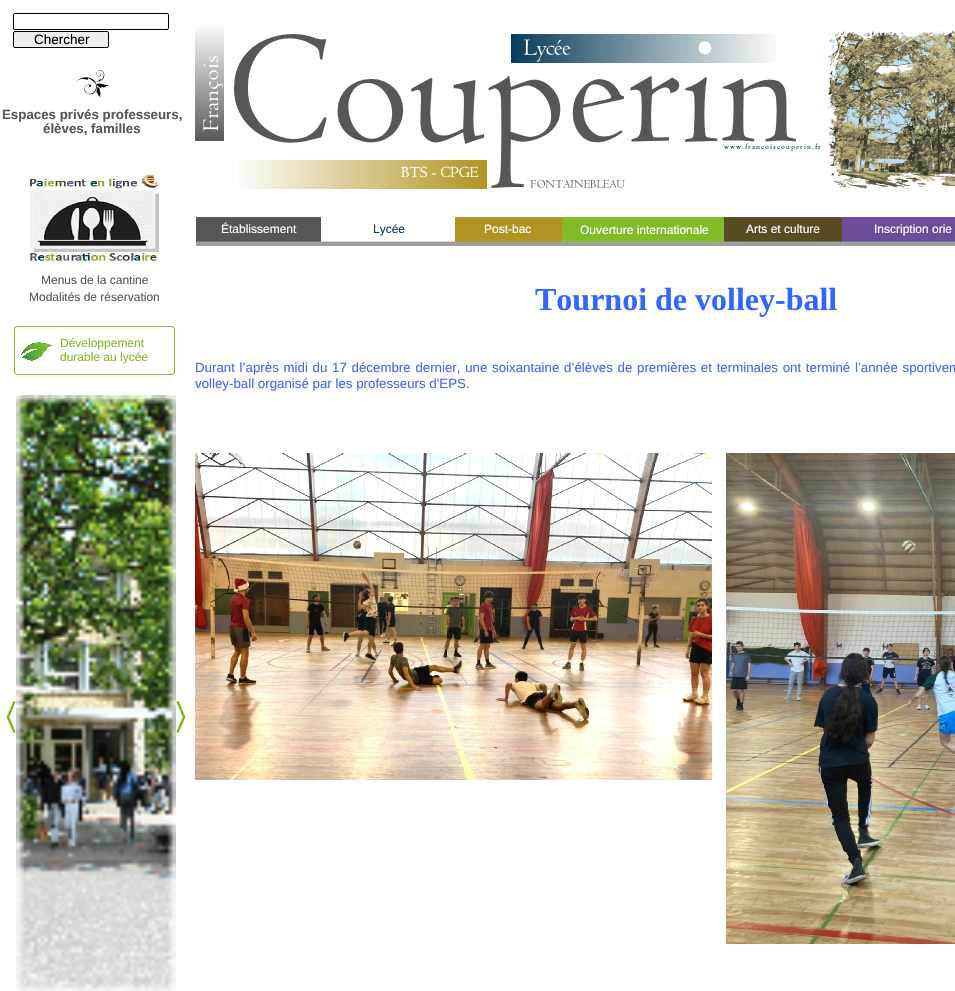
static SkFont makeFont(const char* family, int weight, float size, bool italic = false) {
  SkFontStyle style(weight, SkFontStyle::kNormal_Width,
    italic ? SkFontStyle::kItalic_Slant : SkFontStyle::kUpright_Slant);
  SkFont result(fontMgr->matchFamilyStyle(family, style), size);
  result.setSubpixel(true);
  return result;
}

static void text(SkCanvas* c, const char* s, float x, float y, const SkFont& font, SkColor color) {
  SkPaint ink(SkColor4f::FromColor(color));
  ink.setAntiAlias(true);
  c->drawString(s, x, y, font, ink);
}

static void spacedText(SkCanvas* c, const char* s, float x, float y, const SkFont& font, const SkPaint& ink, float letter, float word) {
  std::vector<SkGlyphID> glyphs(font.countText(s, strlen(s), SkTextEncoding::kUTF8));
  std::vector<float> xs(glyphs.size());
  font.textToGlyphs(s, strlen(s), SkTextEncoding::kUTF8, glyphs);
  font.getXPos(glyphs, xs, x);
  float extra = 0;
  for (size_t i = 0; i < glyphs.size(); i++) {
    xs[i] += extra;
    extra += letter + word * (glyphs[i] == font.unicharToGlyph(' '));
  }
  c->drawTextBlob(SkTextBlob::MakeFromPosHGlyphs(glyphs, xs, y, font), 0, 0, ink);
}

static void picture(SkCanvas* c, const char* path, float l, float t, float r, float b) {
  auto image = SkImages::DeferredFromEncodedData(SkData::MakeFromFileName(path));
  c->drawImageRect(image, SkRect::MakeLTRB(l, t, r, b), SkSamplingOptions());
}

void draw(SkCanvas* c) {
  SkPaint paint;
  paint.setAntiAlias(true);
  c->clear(0xffffffff);
  paint.setStyle(SkPaint::kStroke_Style);
  paint.setStrokeWidth(1);
  paint.setColor(0xff000000);
  c->drawRoundRect(SkRect::MakeLTRB(13.5f, 13.5f, 168.5f, 29.5f), 1.5f, 1.5f, paint);
  paint.setStyle(SkPaint::kFill_Style);
  paint.setColor(0xffefefef);
  c->drawRoundRect(SkRect::MakeLTRB(13.5f, 31.5f, 108.5f, 47.5f), 1.5f, 1.5f, paint);
  paint.setStyle(SkPaint::kStroke_Style);
  paint.setColor(0xff000000);
  c->drawRoundRect(SkRect::MakeLTRB(13.5f, 31.5f, 108.5f, 47.5f), 1.5f, 1.5f, paint);
  SkFont face1 = makeFont("Liberation Sans", 400, 13.5f);
  text(c, "Chercher", 34, 44, face1, 0xff000000);
  picture(c, "img_01.png", 195, 26, 224, 141);
  picture(c, "img_02.png", 234, 34, 796, 188);
  picture(c, "img_03.png", 828, 31, 955, 189);
  picture(c, "img_04.png", 511, 34, 776, 63);
  picture(c, "img_05.png", 75, 70, 109, 97);
  SkFont face2 = makeFont("Liberation Sans", 700, 13.3f);
  text(c, "Espaces privés professeurs,", 2, 119, face2, 0xff575756);
  text(c, "élèves, familles", 43, 133, face2, 0xff575756);
  picture(c, "img_06.png", 724, 143, 821, 152);
  picture(c, "img_07.png", 238, 160, 487, 189);
  picture(c, "img_08.png", 23, 171, 165, 267);
  picture(c, "img_09.png", 196, 217, 321, 246);
  SkFont face3 = makeFont("Liberation Sans", 400, 12);
  text(c, "Établissement", 221, 233, face3, 0xffffffff);
  picture(c, "img_10.png", 321, 241, 455, 246);
  text(c, "Lycée", 373, 233, face3, 0xff073c59);
  SkFont face4 = makeFont("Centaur", 400, 16);
  text(c, "BTS - CPGE", 401, 177, face4, 0xffffffff);
  picture(c, "img_11.png", 455, 217, 562, 246);
  text(c, "Post-bac", 484, 233, face3, 0xffffffff);
  picture(c, "img_12.png", 562, 217, 724, 246);
  text(c, "Ouverture internationale", 580, 234, face3, 0xffffffff);
  picture(c, "img_13.png", 724, 217, 842, 246);
  text(c, "Arts et culture", 746, 233, face3, 0xffffffff);
  picture(c, "img_14.png", 842, 217, 955, 246);
  text(c, "Inscription orie", 874, 233, face3, 0xffffffff);
  text(c, "Menus de la cantine", 41, 284, face3, 0xff575756);
  text(c, "Modalités de réservation", 29, 301, face3, 0xff575756);
  SkFont face5 = makeFont("Liberation Serif", 700, 32);
  text(c, "Tournoi de volley-ball", 535, 310, face5, 0xff3366ff);
  picture(c, "img_15.png", 14, 326, 175, 375);
  picture(c, "img_16.png", 21, 342, 52, 361);
  text(c, "Développement", 60, 347, face3, 0xff81bb27);
  text(c, "durable au lycée", 60, 361, face3, 0xff81bb27);
  SkFont face6 = makeFont("Liberation Sans", 400, 13.3f);
  paint.setStyle(SkPaint::kFill_Style);
  paint.setColor(0xff4964ff);
  spacedText(c, "Durant l’après midi du 17 décembre dernier, une soixantaine d’élèves de premières et terminales ont terminé l’année sportivem", 195, 372, face6, paint, 0, 1);
  text(c, "volley-ball organisé par les professeurs d'EPS.", 195, 388, face6, 0xff4964ff);
  picture(c, "img_17.png", 6, 700, 16, 734);
  picture(c, "img_18.png", 16, 395, 176, 991);
  picture(c, "img_19.png", 176, 700, 186, 734);
  picture(c, "img_20.png", 195, 453, 712, 780);
  picture(c, "img_21.png", 726, 453, 955, 944);
}
